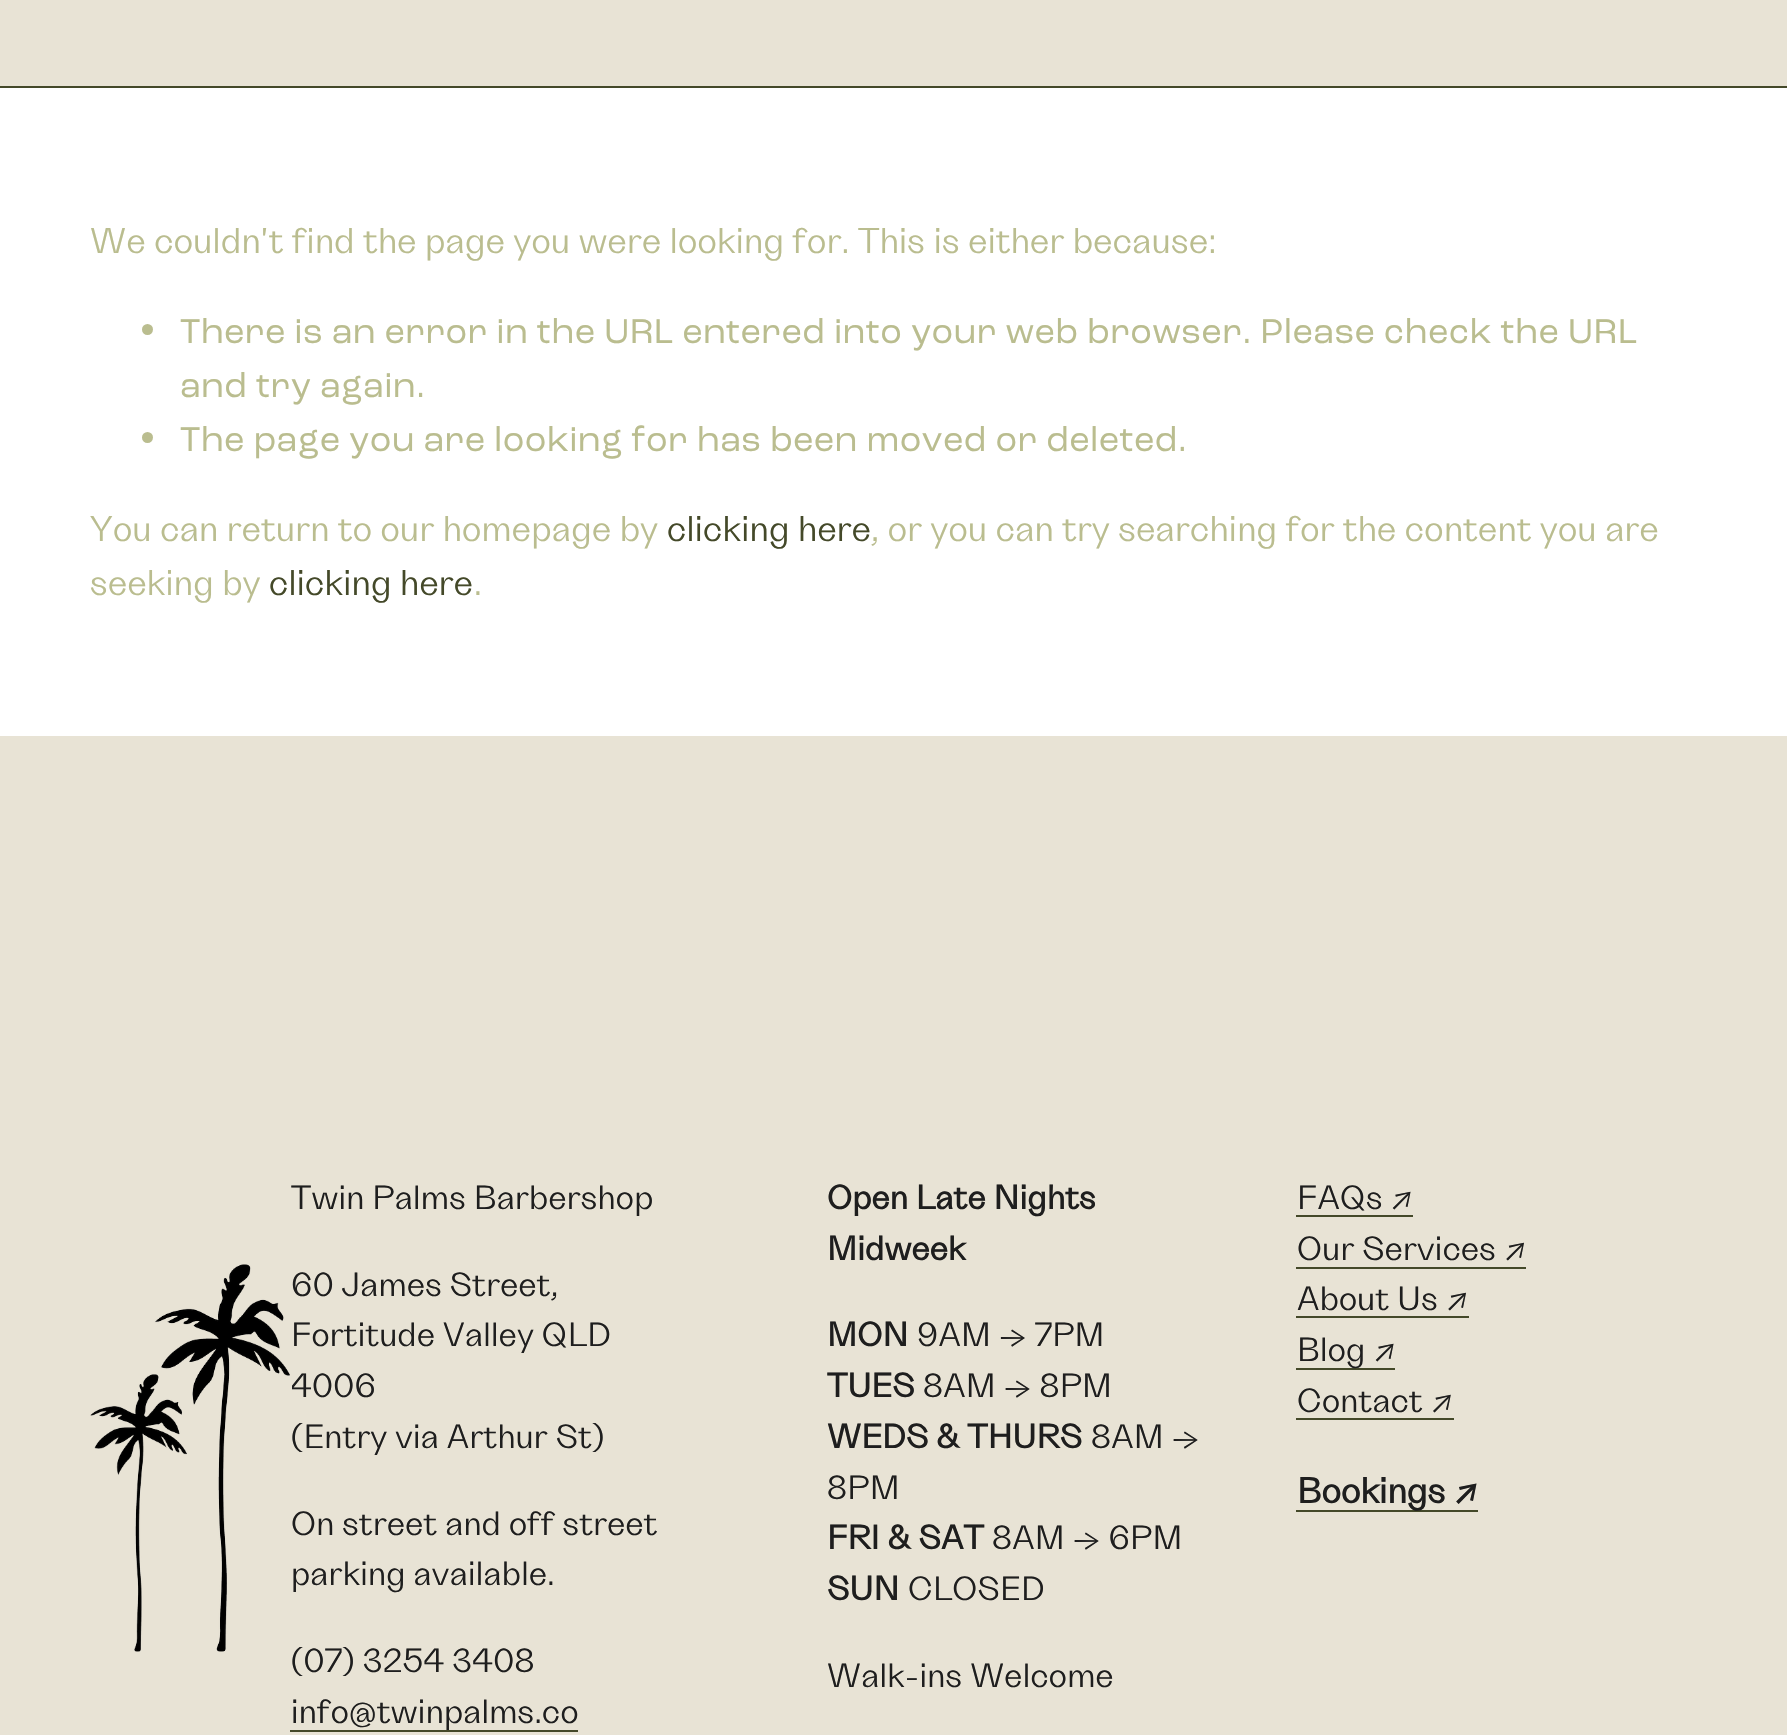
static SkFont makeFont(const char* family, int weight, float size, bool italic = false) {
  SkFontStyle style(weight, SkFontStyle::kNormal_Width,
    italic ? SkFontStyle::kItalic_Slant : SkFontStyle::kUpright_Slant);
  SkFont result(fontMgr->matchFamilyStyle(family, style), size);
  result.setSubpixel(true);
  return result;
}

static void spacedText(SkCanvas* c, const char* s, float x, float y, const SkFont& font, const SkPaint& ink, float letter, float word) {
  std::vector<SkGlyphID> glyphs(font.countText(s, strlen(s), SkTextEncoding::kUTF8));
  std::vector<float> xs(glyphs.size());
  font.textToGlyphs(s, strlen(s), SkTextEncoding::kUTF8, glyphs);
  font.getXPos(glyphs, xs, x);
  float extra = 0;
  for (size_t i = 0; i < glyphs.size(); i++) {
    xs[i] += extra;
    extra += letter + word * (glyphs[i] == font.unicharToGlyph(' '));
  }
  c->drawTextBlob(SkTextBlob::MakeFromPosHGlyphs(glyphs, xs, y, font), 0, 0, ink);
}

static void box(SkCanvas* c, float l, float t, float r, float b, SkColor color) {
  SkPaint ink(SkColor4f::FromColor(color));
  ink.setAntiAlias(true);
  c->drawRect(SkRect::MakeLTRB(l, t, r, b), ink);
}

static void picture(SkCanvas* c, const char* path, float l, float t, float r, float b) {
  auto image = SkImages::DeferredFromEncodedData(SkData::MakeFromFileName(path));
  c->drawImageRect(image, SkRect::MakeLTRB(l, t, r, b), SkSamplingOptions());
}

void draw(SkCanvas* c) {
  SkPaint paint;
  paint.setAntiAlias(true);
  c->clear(0xffffffff);
  box(c, 0, 0, 1787, 86, 0xffe8e3d5);
  box(c, 0, 86, 1787, 88, 0xff444929);
  SkFont face1 = makeFont("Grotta", 400, 36);
  paint.setColor(0xffbabd8f);
  spacedText(c, "We couldn't find the page you were looking for. This is either because:", 90, 253, face1, paint, 0.35f, 0);
  c->drawCircle(147.5f, 329.5f, 5.5f, paint);
  SkFont face2 = makeFont("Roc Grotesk", 400, 36);
  spacedText(c, "There is an error in the URL entered into your web browser. Please check the URL", 180, 343, face2, paint, 0.35f, 0);
  spacedText(c, "and try again.", 180, 397, face2, paint, 0.35f, 0);
  c->drawCircle(147.5f, 437.5f, 5.5f, paint);
  spacedText(c, "The page you are looking for has been moved or deleted.", 180, 451, face2, paint, 0.35f, 0);
  spacedText(c, "You can return to our homepage by", 90, 541, face1, paint, 0.35f, 0);
  paint.setColor(0xff444929);
  spacedText(c, "clicking here", 667, 541, face1, paint, 0.35f, 0);
  paint.setColor(0xffbabd8f);
  spacedText(c, ", or you can try searching for the content you are", 871, 541, face1, paint, 0.35f, 0);
  spacedText(c, "seeking by", 90, 595, face1, paint, 0.35f, 0);
  paint.setColor(0xff444929);
  spacedText(c, "clicking here", 269, 595, face1, paint, 0.35f, 0);
  paint.setColor(0xffbabd8f);
  spacedText(c, ".", 474, 595, face1, paint, 0.35f, 0);
  box(c, 0, 736, 1787, 1735, 0xffe8e3d5);
  picture(c, "img_01.png", 90, 1264, 290, 1652);
  SkFont face3 = makeFont("Grotta", 400, 33.8f);
  paint.setColor(0xff1e1e1e);
  spacedText(c, "Twin Palms Barbershop", 291, 1209, face3, paint, 0.35f, 0);
  spacedText(c, "60 James Street,", 291, 1296, face3, paint, 0.35f, 0);
  spacedText(c, "Fortitude Valley QLD", 291, 1346, face3, paint, 0.35f, 0);
  spacedText(c, "4006", 291, 1397, face3, paint, 0.35f, 0);
  spacedText(c, "(Entry via Arthur St)", 291, 1448, face3, paint, 0.35f, 0);
  spacedText(c, "On street and off street", 291, 1535, face3, paint, 0.35f, 0);
  spacedText(c, "parking available.", 291, 1585, face3, paint, 0.35f, 0);
  spacedText(c, "(07) 3254 3408", 291, 1672, face3, paint, 0.35f, 0);
  box(c, 290, 1730, 578, 1732, 0xff444929);
  spacedText(c, "info@twinpalms.co", 291, 1723, face3, paint, 0.35f, 0);
  SkFont face4 = makeFont("Grotta", 700, 33.8f);
  spacedText(c, "Open Late Nights", 827, 1209, face4, paint, 0.35f, 0);
  spacedText(c, "Midweek", 827, 1260, face4, paint, 0.35f, 0);
  spacedText(c, "MON", 827, 1346, face4, paint, 0.35f, 0);
  spacedText(c, "9AM → 7PM", 917, 1346, face3, paint, 0.35f, 0);
  spacedText(c, "TUES", 827, 1397, face4, paint, 0.35f, 0);
  spacedText(c, "8AM → 8PM", 923, 1397, face3, paint, 0.35f, 0);
  spacedText(c, "WEDS & THURS", 827, 1448, face4, paint, 0.35f, 0);
  spacedText(c, "8AM →", 1091, 1448, face3, paint, 0.35f, 0);
  spacedText(c, "8PM", 827, 1499, face3, paint, 0.35f, 0);
  spacedText(c, "FRI & SAT", 827, 1549, face4, paint, 0.35f, 0);
  spacedText(c, "8AM → 6PM", 992, 1549, face3, paint, 0.35f, 0);
  spacedText(c, "SUN", 827, 1600, face4, paint, 0.35f, 0);
  spacedText(c, "CLOSED", 908, 1600, face3, paint, 0.35f, 0);
  spacedText(c, "Walk-ins Welcome", 827, 1687, face3, paint, 0.35f, 0);
  spacedText(c, "FAQs ↗", 1297, 1209, face3, paint, 0.35f, 0);
  box(c, 1296, 1215, 1413, 1217, 0xff444929);
  spacedText(c, "Our Services ↗", 1297, 1260, face3, paint, 0.35f, 0);
  box(c, 1296, 1267, 1526, 1269, 0xff444929);
  spacedText(c, "About Us ↗", 1297, 1310, face3, paint, 0.35f, 0);
  box(c, 1296, 1316, 1469, 1318, 0xff444929);
  box(c, 1296, 1368, 1395, 1370, 0xff444929);
  spacedText(c, "Blog ↗", 1297, 1361, face3, paint, 0.35f, 0);
  spacedText(c, "Contact ↗", 1297, 1412, face3, paint, 0.35f, 0);
  box(c, 1296, 1418, 1454, 1420, 0xff444929);
  box(c, 1296, 1510, 1478, 1512, 0xff444929);
  SkFont face5 = makeFont("Grotta", 700, 36);
  spacedText(c, "Bookings ↗", 1297, 1503, face5, paint, 0.35f, 0);
}
